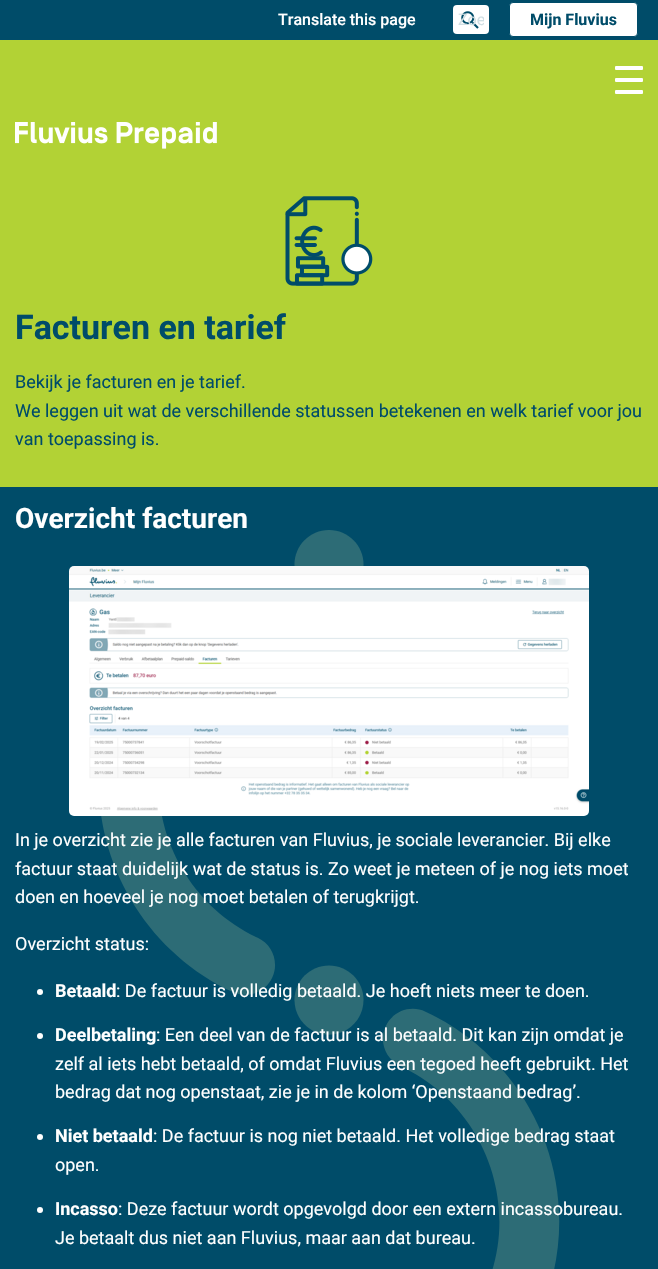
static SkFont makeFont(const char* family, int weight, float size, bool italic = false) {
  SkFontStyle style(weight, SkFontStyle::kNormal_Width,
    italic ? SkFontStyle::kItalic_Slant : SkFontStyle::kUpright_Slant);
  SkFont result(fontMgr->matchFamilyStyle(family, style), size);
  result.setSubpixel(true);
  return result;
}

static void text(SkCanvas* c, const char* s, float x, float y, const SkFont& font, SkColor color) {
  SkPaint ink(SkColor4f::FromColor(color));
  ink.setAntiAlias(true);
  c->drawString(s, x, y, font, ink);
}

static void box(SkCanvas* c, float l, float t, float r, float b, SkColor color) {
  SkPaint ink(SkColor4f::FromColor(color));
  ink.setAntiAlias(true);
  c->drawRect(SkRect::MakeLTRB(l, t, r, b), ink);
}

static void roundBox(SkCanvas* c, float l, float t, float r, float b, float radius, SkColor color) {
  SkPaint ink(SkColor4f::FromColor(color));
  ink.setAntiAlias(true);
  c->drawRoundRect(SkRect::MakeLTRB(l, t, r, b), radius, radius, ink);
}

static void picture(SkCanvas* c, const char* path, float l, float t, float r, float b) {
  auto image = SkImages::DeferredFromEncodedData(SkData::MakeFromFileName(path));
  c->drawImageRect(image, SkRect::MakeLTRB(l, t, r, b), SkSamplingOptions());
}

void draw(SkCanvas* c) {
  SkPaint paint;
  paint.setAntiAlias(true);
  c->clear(0xffb2d235);
  box(c, 0, 0, 658, 40, 0xff004c69);
  SkFont face1 = makeFont("Roboto", 500, 16);
  text(c, "Translate this page", 278, 25, face1, 0xffffffff);
  roundBox(c, 453, 5, 489, 34, 4, 0xffffffff);
  picture(c, "img_01.png", 461, 11, 479, 29);
  c->save();
  c->clipRect(SkRect::MakeLTRB(458, 10, 484, 29));
  SkFont face2 = makeFont("Roboto", 400, 16);
  text(c, "Zoe", 458, 25, face2, 0xffd0dee3);
  c->restore();
  paint.setColor(0xffffffff);
  c->drawRoundRect(SkRect::MakeLTRB(509.5f, 2.5f, 637.5f, 36.5f), 3.5f, 3.5f, paint);
  paint.setStyle(SkPaint::kStroke_Style);
  paint.setStrokeWidth(1);
  paint.setColor(0xff004c69);
  c->drawRoundRect(SkRect::MakeLTRB(509.5f, 2.5f, 637.5f, 36.5f), 3.5f, 3.5f, paint);
  SkFont face3 = makeFont("Roboto", 700, 16);
  text(c, "Mijn Fluvius", 530, 25, face3, 0xff004c69);
  roundBox(c, 615, 66, 643, 70, 1, 0xffffffff);
  roundBox(c, 615, 78, 643, 82, 1, 0xffffffff);
  roundBox(c, 615, 90, 643, 94, 1, 0xffffffff);
  picture(c, "img_02.png", 15, 122, 217, 149);
  picture(c, "img_03.png", 285, 196, 373, 286);
  SkFont face4 = makeFont("Roboto", 700, 34);
  text(c, "Facturen en tarief", 15, 339, face4, 0xff004c69);
  SkFont face5 = makeFont("Roboto", 400, 18);
  text(c, "Bekijk je facturen en je tarief.", 15, 388, face5, 0xff004c69);
  text(c, "We leggen uit wat de verschillende statussen betekenen en welk tarief voor jou", 15, 417, face5, 0xff004c69);
  text(c, "van toepassing is.", 15, 445, face5, 0xff004c69);
  box(c, 0, 487, 658, 1269, 0xff004c69);
  SkFont face6 = makeFont("Roboto", 700, 28);
  text(c, "Overzicht facturen", 15, 528, face6, 0xffffffff);
  picture(c, "img_05.png", 101, 530, 560, 1269);
  picture(c, "img_04.png", 69, 566, 589, 816);
  text(c, "In je overzicht zie je alle facturen van Fluvius, je sociale leverancier. Bij elke", 15, 846, face5, 0xffffffff);
  text(c, "factuur staat duidelijk wat de status is. Zo weet je meteen of je nog iets moet", 15, 875, face5, 0xffffffff);
  text(c, "doen en hoeveel je nog moet betalen of terugkrijgt.", 15, 903, face5, 0xffffffff);
  text(c, "Overzicht status:", 15, 950, face5, 0xffffffff);
  paint.setStyle(SkPaint::kFill_Style);
  paint.setColor(0xffffffff);
  c->drawCircle(40, 992, 3, paint);
  SkFont face7 = makeFont("Roboto", 700, 18);
  text(c, "Betaald", 55, 997, face7, 0xffffffff);
  text(c, ": De factuur is volledig betaald. Je hoeft niets meer te doen.", 116, 997, face5, 0xffffffff);
  c->drawCircle(40, 1036, 3, paint);
  text(c, "Deelbetaling", 55, 1041, face7, 0xffffffff);
  text(c, ": Een deel van de factuur is al betaald. Dit kan zijn omdat je", 156, 1041, face5, 0xffffffff);
  text(c, "zelf al iets hebt betaald, of omdat Fluvius een tegoed heeft gebruikt. Het", 55, 1070, face5, 0xffffffff);
  text(c, "bedrag dat nog openstaat, zie je in de kolom ‘Openstaand bedrag’.", 55, 1098, face5, 0xffffffff);
  c->drawCircle(40, 1137, 3, paint);
  text(c, "Niet betaald", 55, 1142, face7, 0xffffffff);
  text(c, ": De factuur is nog niet betaald. Het volledige bedrag staat", 153, 1142, face5, 0xffffffff);
  text(c, "open.", 55, 1171, face5, 0xffffffff);
  c->drawCircle(40, 1210, 3, paint);
  text(c, "Incasso", 55, 1215, face7, 0xffffffff);
  text(c, ": Deze factuur wordt opgevolgd door een extern incassobureau.", 118, 1215, face5, 0xffffffff);
  text(c, "Je betaalt dus niet aan Fluvius, maar aan dat bureau.", 55, 1244, face5, 0xffffffff);
}
